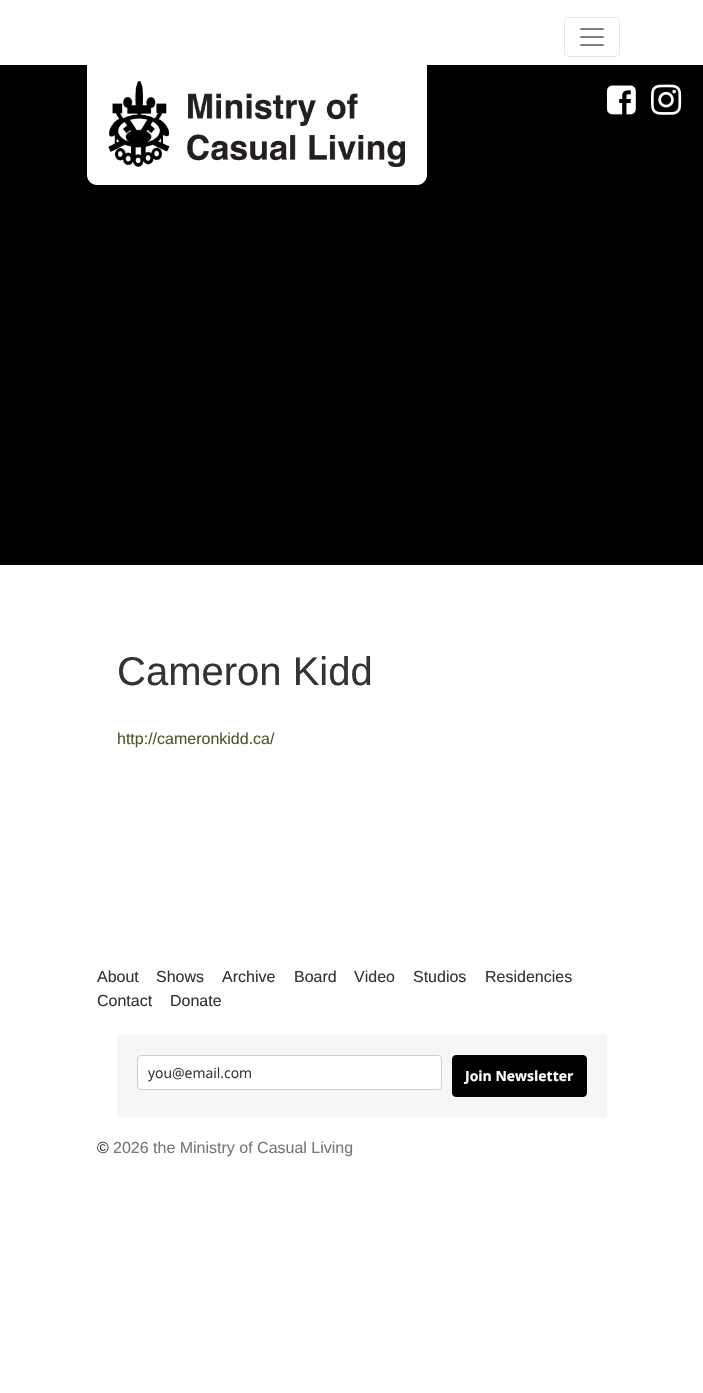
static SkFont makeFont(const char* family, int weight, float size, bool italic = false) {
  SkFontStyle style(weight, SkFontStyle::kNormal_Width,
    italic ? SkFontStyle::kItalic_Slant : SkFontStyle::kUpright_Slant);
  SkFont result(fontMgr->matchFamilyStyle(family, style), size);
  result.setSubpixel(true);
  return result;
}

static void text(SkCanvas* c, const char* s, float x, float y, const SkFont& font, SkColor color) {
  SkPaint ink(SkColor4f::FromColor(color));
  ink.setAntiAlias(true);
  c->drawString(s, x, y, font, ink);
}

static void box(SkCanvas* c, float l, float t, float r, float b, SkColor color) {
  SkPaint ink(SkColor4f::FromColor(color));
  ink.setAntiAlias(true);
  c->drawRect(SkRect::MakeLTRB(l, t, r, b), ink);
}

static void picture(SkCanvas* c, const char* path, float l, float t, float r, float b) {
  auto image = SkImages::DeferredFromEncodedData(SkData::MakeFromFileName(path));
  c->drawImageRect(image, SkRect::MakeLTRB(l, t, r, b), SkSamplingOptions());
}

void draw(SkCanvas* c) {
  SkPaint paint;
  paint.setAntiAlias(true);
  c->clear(0xffffffff);
  paint.setStyle(SkPaint::kStroke_Style);
  paint.setStrokeWidth(1);
  paint.setColor(0xffe6e6e6);
  c->drawRoundRect(SkRect::MakeLTRB(564.5f, 17.5f, 619.5f, 56.5f), 3.5f, 3.5f, paint);
  picture(c, "img_01.png", 580, 28, 604, 46);
  box(c, 0, 65, 703, 565, 0xff000000);
  paint.setStyle(SkPaint::kFill_Style);
  paint.setColor(0xffffffff);
  c->drawPath(SkPathBuilder().moveTo(87, 65).lineTo(427, 65).lineTo(427, 175).cubicTo(427, 180.5f, 422.5f, 185, 417, 185).lineTo(97, 185).cubicTo(91.5f, 185, 87, 180.5f, 87, 175).close().detach(), paint);
  picture(c, "img_02.png", 108, 81, 405, 167);
  picture(c, "img_03.png", 607, 85, 636, 115);
  picture(c, "img_04.png", 651, 84, 682, 115);
  SkFont face1 = makeFont("Liberation Sans", 400, 40);
  text(c, "Cameron Kidd", 117, 685, face1, 0xff333333);
  SkFont face2 = makeFont("Liberation Sans", 400, 16);
  text(c, "http://cameronkidd.ca/", 117, 744, face2, 0xff555522);
  text(c, "About", 97, 982, face2, 0xff333333);
  text(c, "Shows", 156, 982, face2, 0xff333333);
  text(c, "Archive", 222, 982, face2, 0xff333333);
  text(c, "Board", 294, 982, face2, 0xff333333);
  text(c, "Video", 354, 982, face2, 0xff333333);
  text(c, "Studios", 413, 982, face2, 0xff333333);
  text(c, "Residencies", 485, 982, face2, 0xff333333);
  text(c, "Contact", 97, 1006, face2, 0xff333333);
  text(c, "Donate", 170, 1006, face2, 0xff333333);
  box(c, 117, 1035, 607, 1117, 0xfff6f6f6);
  c->drawRoundRect(SkRect::MakeLTRB(137.5f, 1055.5f, 441.5f, 1089.5f), 3.5f, 3.5f, paint);
  paint.setStyle(SkPaint::kStroke_Style);
  paint.setColor(0xffcccccc);
  c->drawRoundRect(SkRect::MakeLTRB(137.5f, 1055.5f, 441.5f, 1089.5f), 3.5f, 3.5f, paint);
  c->save();
  c->clipRect(SkRect::MakeLTRB(148, 1063, 431, 1082));
  SkFont face3 = makeFont("Open Sans", 400, 14);
  text(c, "you@email.com", 148, 1078, face3, 0xff333333);
  c->restore();
  paint.setStyle(SkPaint::kFill_Style);
  paint.setColor(0xff000000);
  c->drawRoundRect(SkRect::MakeLTRB(452.5f, 1055.5f, 586.5f, 1096.5f), 3.5f, 3.5f, paint);
  paint.setStyle(SkPaint::kStroke_Style);
  c->drawRoundRect(SkRect::MakeLTRB(452.5f, 1055.5f, 586.5f, 1096.5f), 3.5f, 3.5f, paint);
  SkFont face4 = makeFont("Open Sans", 700, 14);
  text(c, "Join Newsletter", 465, 1081, face4, 0xffffffff);
  text(c, "©", 97, 1153, face2, 0xff333333);
  text(c, "2026 the Ministry of Casual Living", 113, 1153, face2, 0xff777777);
}
